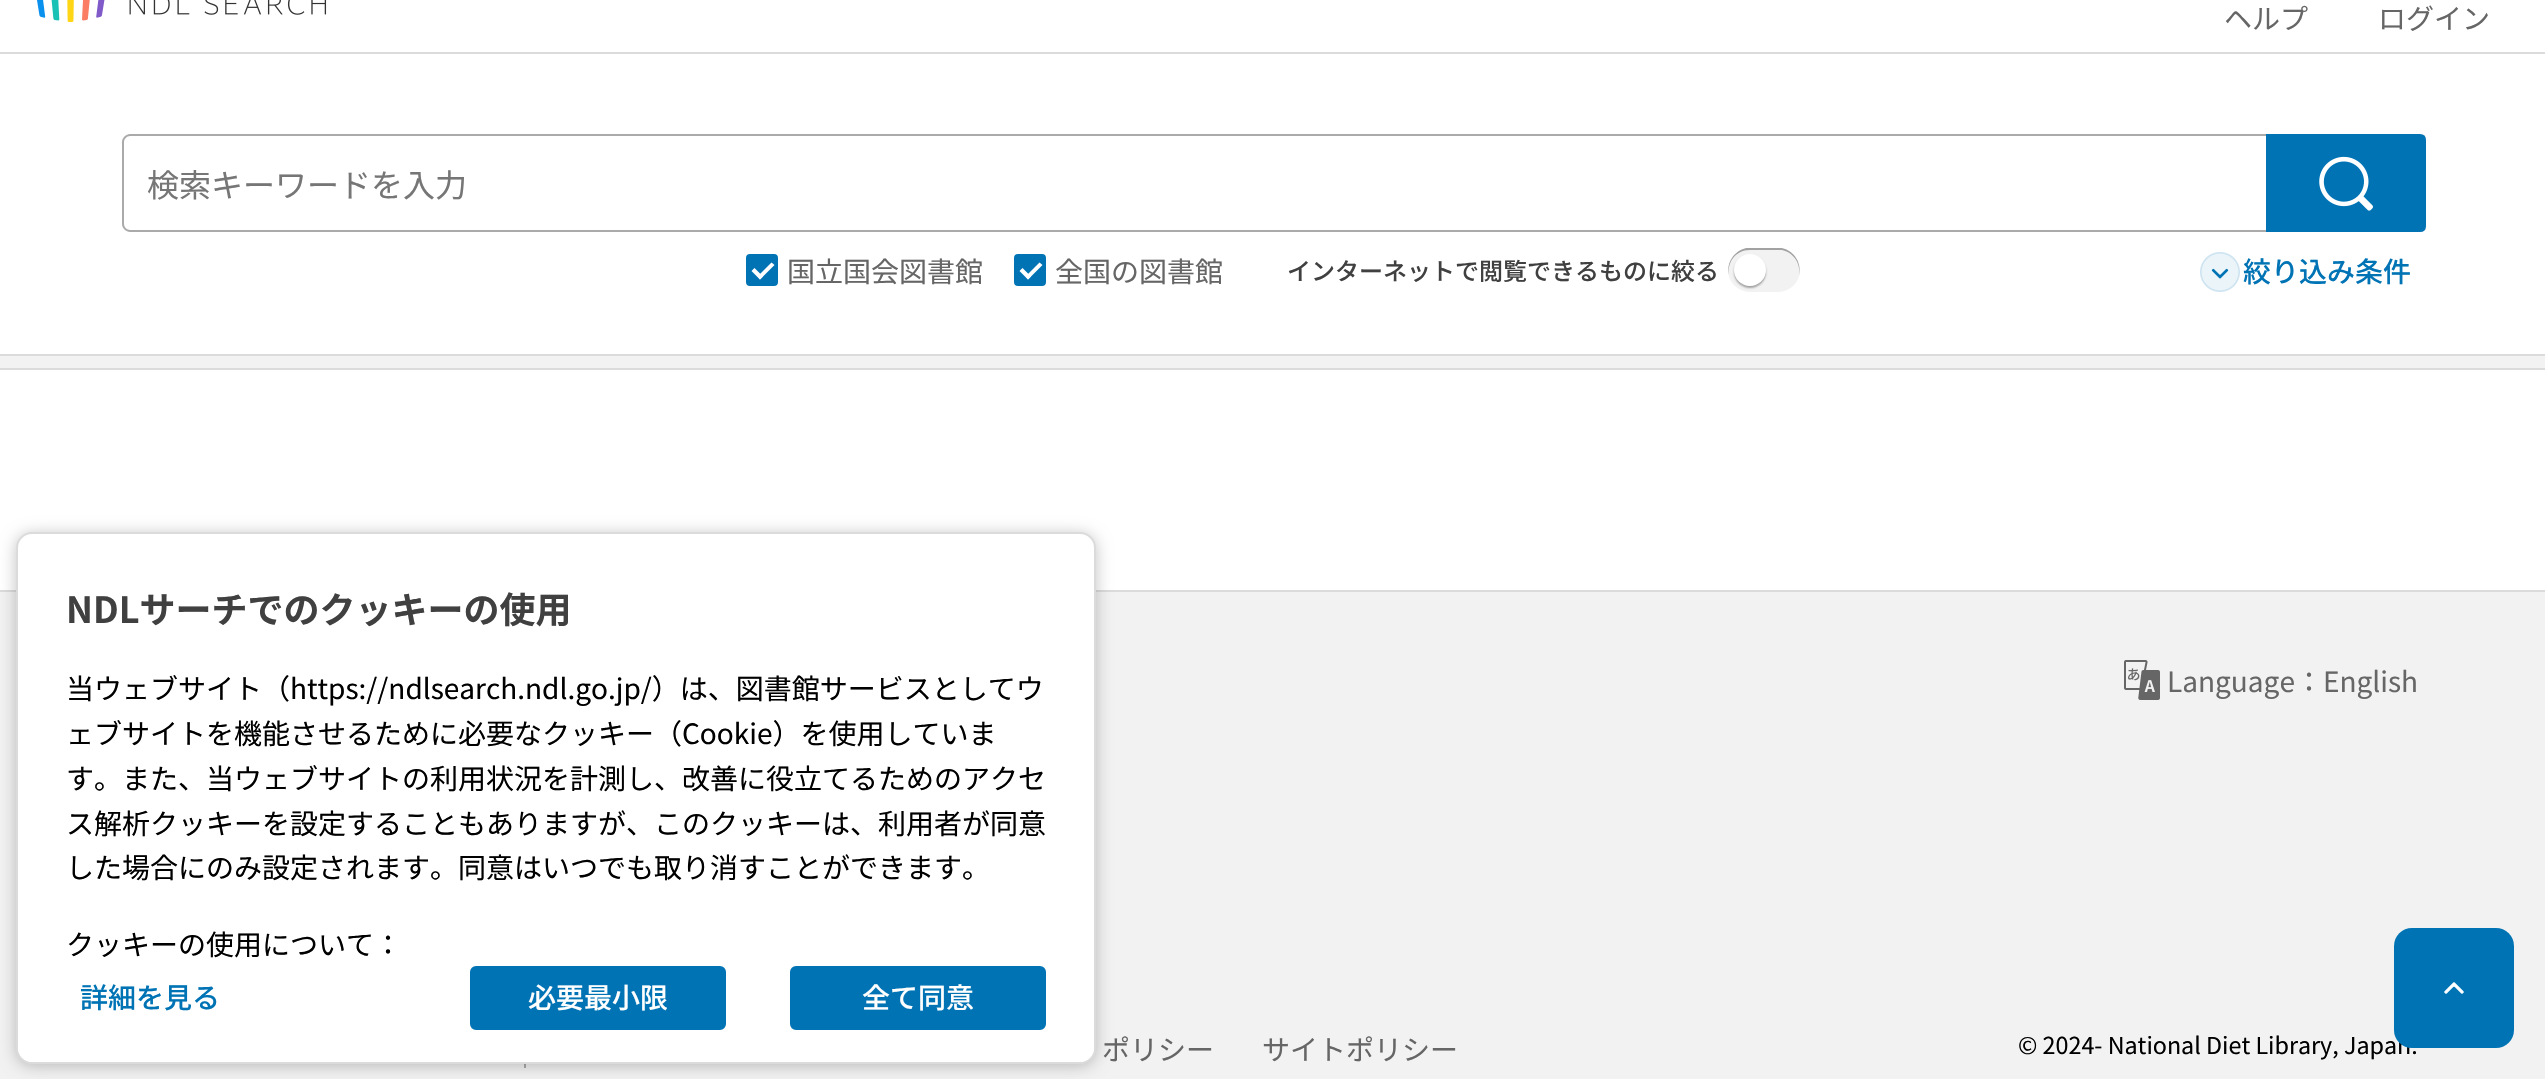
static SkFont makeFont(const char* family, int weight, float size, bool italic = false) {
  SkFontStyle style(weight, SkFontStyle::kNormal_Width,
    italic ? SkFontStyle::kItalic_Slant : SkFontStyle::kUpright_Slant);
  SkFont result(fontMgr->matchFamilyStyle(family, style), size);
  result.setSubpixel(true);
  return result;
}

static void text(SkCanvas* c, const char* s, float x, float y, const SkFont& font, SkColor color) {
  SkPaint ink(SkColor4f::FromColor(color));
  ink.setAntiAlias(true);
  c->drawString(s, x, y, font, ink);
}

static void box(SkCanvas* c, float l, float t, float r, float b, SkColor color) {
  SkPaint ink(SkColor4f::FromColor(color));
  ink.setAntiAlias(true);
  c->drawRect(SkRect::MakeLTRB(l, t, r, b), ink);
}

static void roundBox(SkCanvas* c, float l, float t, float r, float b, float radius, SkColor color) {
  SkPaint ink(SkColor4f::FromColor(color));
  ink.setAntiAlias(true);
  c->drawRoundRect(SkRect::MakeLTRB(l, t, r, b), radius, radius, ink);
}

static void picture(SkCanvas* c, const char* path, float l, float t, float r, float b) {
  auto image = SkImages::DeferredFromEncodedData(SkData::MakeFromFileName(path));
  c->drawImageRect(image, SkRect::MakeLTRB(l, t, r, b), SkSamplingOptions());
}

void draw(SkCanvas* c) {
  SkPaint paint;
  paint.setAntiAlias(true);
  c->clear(0xffffffff);
  box(c, 0, 52, 2545, 54, 0xffdbdbdb);
  picture(c, "img_01.png", 37, 0, 327, 22);
  SkFont face1 = makeFont("Noto Sans JP", 400, 28);
  text(c, "ヘルプ", 2224, 29, face1, 0xff666666);
  text(c, "ログイン", 2378, 29, face1, 0xff666666);
  paint.setColor(0xffaaaaaa);
  c->drawPath(SkPathBuilder(SkPathFillType::kEvenOdd).moveTo(130, 134).lineTo(2266, 134).lineTo(2266, 232).lineTo(130, 232).cubicTo(126, 232, 122, 228, 122, 224).lineTo(122, 142).cubicTo(122, 138, 126, 134, 130, 134).close().moveTo(130, 136).lineTo(2266, 136).lineTo(2266, 230).lineTo(130, 230).cubicTo(127, 230, 124, 227, 124, 224).lineTo(124, 142).cubicTo(124, 139, 127, 136, 130, 136).close().detach(), paint);
  SkFont face2 = makeFont("Noto Sans JP", 400, 32);
  text(c, "検索キーワードを入力", 147, 197, face2, 0xff767676);
  paint.setColor(0xff0073b5);
  c->drawPath(SkPathBuilder().moveTo(2267, 135).lineTo(2420, 135).cubicTo(2423, 135, 2425, 137, 2425, 140).lineTo(2425, 226).cubicTo(2425, 229, 2423, 231, 2420, 231).lineTo(2267, 231).close().detach(), paint);
  paint.setStyle(SkPaint::kStroke_Style);
  paint.setStrokeWidth(2);
  c->drawPath(SkPathBuilder().moveTo(2267, 135).lineTo(2420, 135).cubicTo(2423, 135, 2425, 137, 2425, 140).lineTo(2425, 226).cubicTo(2425, 229, 2423, 231, 2420, 231).lineTo(2267, 231).close().detach(), paint);
  picture(c, "img_02.png", 2319, 156, 2373, 211);
  paint.setStyle(SkPaint::kFill_Style);
  c->drawRoundRect(SkRect::MakeLTRB(747, 255, 777, 285), 3, 3, paint);
  paint.setStyle(SkPaint::kStroke_Style);
  c->drawRoundRect(SkRect::MakeLTRB(747, 255, 777, 285), 3, 3, paint);
  paint.setStyle(SkPaint::kFill_Style);
  paint.setColor(0xffffffff);
  c->drawPath(SkPathBuilder().moveTo(757.5f, 276.5f).lineTo(771.5f, 262.5f).lineTo(774.5f, 265).lineTo(760, 279.5f).close().detach(), paint);
  c->drawPath(SkPathBuilder().moveTo(751.5f, 271).lineTo(754.5f, 268).lineTo(763, 276.5f).lineTo(760, 279.5f).close().detach(), paint);
  text(c, "国立国会図書館", 787, 282, face1, 0xff666666);
  paint.setColor(0xff0073b5);
  c->drawRoundRect(SkRect::MakeLTRB(1015, 255, 1045, 285), 3, 3, paint);
  paint.setStyle(SkPaint::kStroke_Style);
  c->drawRoundRect(SkRect::MakeLTRB(1015, 255, 1045, 285), 3, 3, paint);
  paint.setStyle(SkPaint::kFill_Style);
  paint.setColor(0xffffffff);
  c->drawPath(SkPathBuilder().moveTo(1025.5f, 276.5f).lineTo(1039.5f, 262.5f).lineTo(1042.5f, 265).lineTo(1028, 279.5f).close().detach(), paint);
  c->drawPath(SkPathBuilder().moveTo(1019.5f, 271).lineTo(1022.5f, 268).lineTo(1031, 276.5f).lineTo(1028, 279.5f).close().detach(), paint);
  text(c, "全国の図書館", 1055, 282, face1, 0xff666666);
  SkFont face3 = makeFont("Noto Sans JP", 500, 24);
  text(c, "インターネットで閲覧できるものに絞る", 1287, 280, face3, 0xff404040);
  roundBox(c, 1728, 248, 1800, 292, 22, 0xfff2f2f2);
  paint.setColor(0x54000000);
  c->drawPath(SkPathBuilder().moveTo(1750, 250).lineTo(1782, 250).cubicTo(1795, 253, 1801, 265, 1799, 276).cubicTo(1802, 264, 1795, 251, 1782, 248).lineTo(1764, 248).lineTo(1746, 248).cubicTo(1734, 251, 1726, 263, 1729, 275).cubicTo(1727, 263, 1735, 250, 1750, 250).close().detach(), paint);
  paint.setMaskFilter(SkMaskFilter::MakeBlur(kNormal_SkBlurStyle, 1));
  c->drawRoundRect(SkRect::MakeLTRB(1734, 256, 1766, 288), 16, 16, paint);
  paint.setMaskFilter(nullptr);
  paint.setColor(0xffffffff);
  c->drawCircle(1750, 270, 16, paint);
  picture(c, "img_03.png", 2200, 252, 2240, 292);
  SkFont face4 = makeFont("Noto Sans JP", 500, 28);
  text(c, "絞り込み条件", 2243, 282, face4, 0xff0073b5);
  box(c, 0, 356, 2545, 368, 0xfff2f2f2);
  box(c, 0, 354, 2545, 356, 0xffdbdbdb);
  box(c, 0, 368, 2545, 370, 0xffdbdbdb);
  box(c, 0, 592, 2545, 1079, 0xfff2f2f2);
  box(c, 0, 590, 2545, 592, 0xffdbdbdb);
  box(c, 524, 1064, 526, 1068, 0xffaaaaaa);
  paint.setColor(0x3d000000);
  paint.setMaskFilter(SkMaskFilter::MakeBlur(kNormal_SkBlurStyle, 8));
  c->drawRoundRect(SkRect::MakeLTRB(16, 534, 1096, 1066), 16, 16, paint);
  paint.setMaskFilter(nullptr);
  paint.setColor(0xffffffff);
  c->drawRoundRect(SkRect::MakeLTRB(17, 533, 1095, 1063), 15, 15, paint);
  paint.setStyle(SkPaint::kStroke_Style);
  paint.setColor(0xffdbdbdb);
  c->drawRoundRect(SkRect::MakeLTRB(17, 533, 1095, 1063), 15, 15, paint);
  SkFont face5 = makeFont("Noto Sans JP", 700, 36);
  text(c, "NDLサーチでのクッキーの使用", 66, 623, face5, 0xff404040);
  text(c, "当ウェブサイト（https://ndlsearch.ndl.go.jp/）は、図書館サービスとしてウ", 66, 699, face1, 0xff000000);
  text(c, "ェブサイトを機能させるために必要なクッキー（Cookie）を使用していま", 66, 744, face1, 0xff000000);
  text(c, "す。また、当ウェブサイトの利用状況を計測し、改善に役立てるためのアクセ", 66, 789, face1, 0xff000000);
  text(c, "ス解析クッキーを設定することもありますが、このクッキーは、利用者が同意", 66, 834, face1, 0xff000000);
  text(c, "した場合にのみ設定されます。同意はいつでも取り消すことができます。", 66, 878, face1, 0xff000000);
  paint.setStyle(SkPaint::kFill_Style);
  paint.setColor(0xffffffff);
  c->drawPath(SkPathBuilder().moveTo(18, 890).lineTo(1094, 890).lineTo(1094, 1048).cubicTo(1094, 1055.5f, 1087.5f, 1062, 1080, 1062).lineTo(32, 1062).cubicTo(24.5f, 1062, 18, 1055.5f, 18, 1048).close().detach(), paint);
  text(c, "クッキーの使用について：", 66, 955, face1, 0xff000000);
  text(c, "詳細を見る", 80, 1008, face4, 0xff0073b5);
  paint.setColor(0xff0073b5);
  c->drawRoundRect(SkRect::MakeLTRB(471, 967, 725, 1029), 5, 5, paint);
  paint.setStyle(SkPaint::kStroke_Style);
  c->drawRoundRect(SkRect::MakeLTRB(471, 967, 725, 1029), 5, 5, paint);
  text(c, "必要最小限", 528, 1008, face4, 0xffffffff);
  paint.setStyle(SkPaint::kFill_Style);
  c->drawRoundRect(SkRect::MakeLTRB(791, 967, 1045, 1029), 5, 5, paint);
  paint.setStyle(SkPaint::kStroke_Style);
  c->drawRoundRect(SkRect::MakeLTRB(791, 967, 1045, 1029), 5, 5, paint);
  text(c, "全て同意", 862, 1008, face4, 0xffffffff);
  picture(c, "img_04.png", 2124, 660, 2160, 700);
  text(c, "Language：English", 2167, 692, face1, 0xff666666);
  text(c, "ポリシー", 1102, 1060, face1, 0xff666666);
  text(c, "サイトポリシー", 1262, 1060, face1, 0xff666666);
  SkFont face6 = makeFont("Noto Sans JP", 400, 23.3f);
  text(c, "© 2024- National Diet Library, Japan.", 2018, 1054, face6, 0xff000000);
  roundBox(c, 2394, 928, 2514, 1048, 18, 0xff0073b5);
  picture(c, "img_05.png", 2444, 982, 2464, 994);
}
